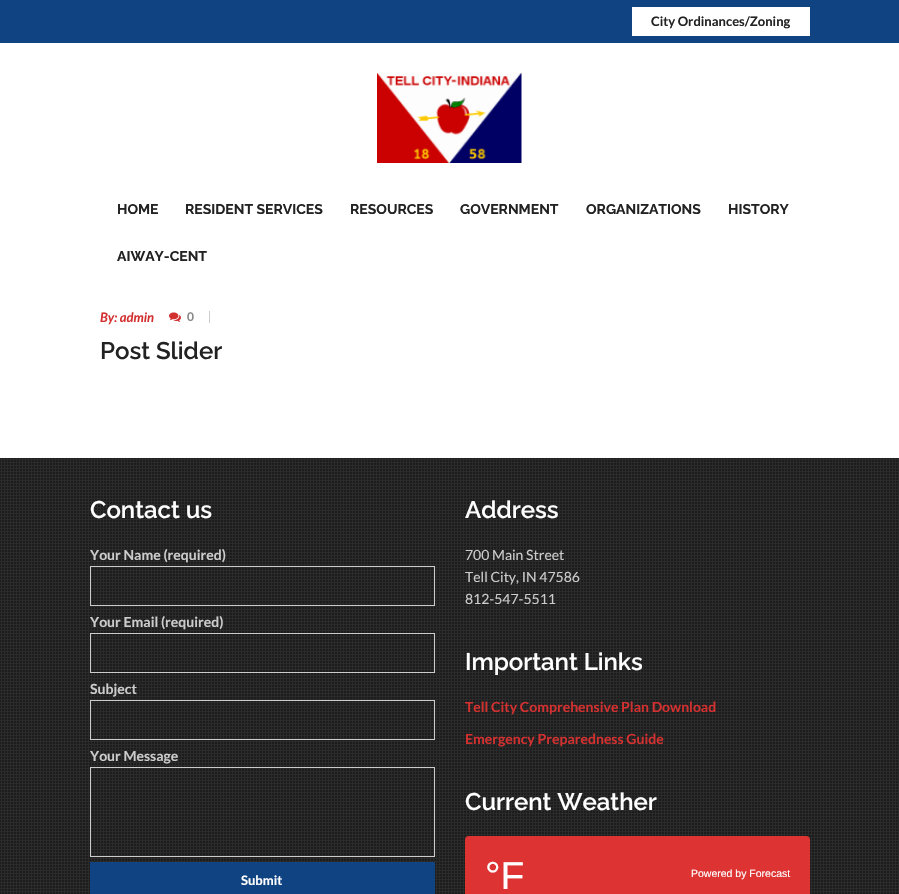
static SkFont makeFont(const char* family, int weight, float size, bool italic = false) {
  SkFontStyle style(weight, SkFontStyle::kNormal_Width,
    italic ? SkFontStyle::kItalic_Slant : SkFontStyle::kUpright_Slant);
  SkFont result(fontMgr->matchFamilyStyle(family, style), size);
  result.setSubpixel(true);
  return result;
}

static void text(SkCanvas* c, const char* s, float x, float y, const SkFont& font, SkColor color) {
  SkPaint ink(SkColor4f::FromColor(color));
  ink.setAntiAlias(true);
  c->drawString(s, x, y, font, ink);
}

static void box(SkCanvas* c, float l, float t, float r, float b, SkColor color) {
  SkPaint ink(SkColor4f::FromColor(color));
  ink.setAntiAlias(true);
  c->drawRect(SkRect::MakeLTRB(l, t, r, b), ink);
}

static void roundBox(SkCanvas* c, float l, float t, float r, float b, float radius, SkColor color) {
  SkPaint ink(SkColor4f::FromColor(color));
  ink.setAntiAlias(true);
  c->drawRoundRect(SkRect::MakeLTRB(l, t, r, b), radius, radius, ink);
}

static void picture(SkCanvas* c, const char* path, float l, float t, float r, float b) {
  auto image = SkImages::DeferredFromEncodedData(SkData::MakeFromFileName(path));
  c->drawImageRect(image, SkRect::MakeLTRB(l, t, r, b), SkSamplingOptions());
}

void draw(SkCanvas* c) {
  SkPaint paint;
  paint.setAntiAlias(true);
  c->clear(0xffffffff);
  box(c, 0, 0, 899, 43, 0xff104382);
  box(c, 632, 7, 810, 36, 0xffffffff);
  SkFont face1 = makeFont("Lato", 700, 13);
  text(c, "City Ordinances/Zoning", 651, 26, face1, 0xff222222);
  picture(c, "img_01.png", 377, 73, 522, 163);
  SkFont face2 = makeFont("Raleway", 700, 14);
  text(c, "HOME", 117, 214, face2, 0xff222222);
  text(c, "RESIDENT SERVICES", 185, 214, face2, 0xff222222);
  text(c, "RESOURCES", 350, 214, face2, 0xff222222);
  text(c, "GOVERNMENT", 460, 214, face2, 0xff222222);
  text(c, "ORGANIZATIONS", 586, 214, face2, 0xff222222);
  text(c, "HISTORY", 728, 214, face2, 0xff222222);
  text(c, "AIWAY-CENT", 117, 261, face2, 0xff222222);
  SkFont face3 = makeFont("Lato", 700, 13, true);
  text(c, "By: admin", 100, 322, face3, 0xffd33030);
  box(c, 209, 311, 210, 323, 0xffcccccc);
  picture(c, "img_02.png", 169, 312, 181, 322);
  SkFont face4 = makeFont("Lato", 700, 12);
  text(c, "0", 187, 321, face4, 0xff888888);
  SkFont face5 = makeFont("Raleway", 600, 24);
  text(c, "Post Slider", 100, 359, face5, 0xff222222);
  box(c, 0, 458, 899, 894, 0xff2b2b2b);
  picture(c, "img_03.png", 0, 458, 898, 894);
  text(c, "Contact us", 90, 518, face5, 0xffffffff);
  SkFont face6 = makeFont("Lato", 700, 14);
  text(c, "Your Name (required)", 90, 560, face6, 0xffcccccc);
  paint.setStyle(SkPaint::kStroke_Style);
  paint.setStrokeWidth(1);
  paint.setColor(0xffcccccc);
  c->drawRect(SkRect::MakeLTRB(90.5f, 566.5f, 434.5f, 605.5f), paint);
  text(c, "Your Email (required)", 90, 627, face6, 0xffcccccc);
  c->drawRect(SkRect::MakeLTRB(90.5f, 633.5f, 434.5f, 672.5f), paint);
  text(c, "Subject", 90, 694, face6, 0xffcccccc);
  c->drawRect(SkRect::MakeLTRB(90.5f, 700.5f, 434.5f, 739.5f), paint);
  text(c, "Your Message", 90, 761, face6, 0xffcccccc);
  c->drawRect(SkRect::MakeLTRB(90.5f, 767.5f, 434.5f, 856.5f), paint);
  box(c, 90, 862, 435, 894, 0xff104382);
  text(c, "Submit", 241, 885, face1, 0xffffffff);
  text(c, "Address", 465, 518, face5, 0xffffffff);
  SkFont face7 = makeFont("Lato", 400, 14);
  text(c, "700 Main Street", 465, 560, face7, 0xffcccccc);
  text(c, "Tell City, IN 47586", 465, 582, face7, 0xffcccccc);
  text(c, "812-547-5511", 465, 604, face7, 0xffcccccc);
  text(c, "Important Links", 465, 670, face5, 0xffffffff);
  text(c, "Tell City Comprehensive Plan Download", 465, 712, face6, 0xffd33030);
  text(c, "Emergency Preparedness Guide", 465, 744, face6, 0xffd33030);
  text(c, "Current Weather", 465, 810, face5, 0xffffffff);
  roundBox(c, 465, 836, 810, 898, 4, 0xffdd3333);
  SkFont face8 = makeFont("Liberation Sans", 400, 39);
  text(c, "°F", 485, 889, face8, 0xffffffff);
  SkFont face9 = makeFont("Liberation Sans", 400, 10.5f);
  text(c, "Powered by Forecast", 691, 877, face9, 0xffffffff);
}
